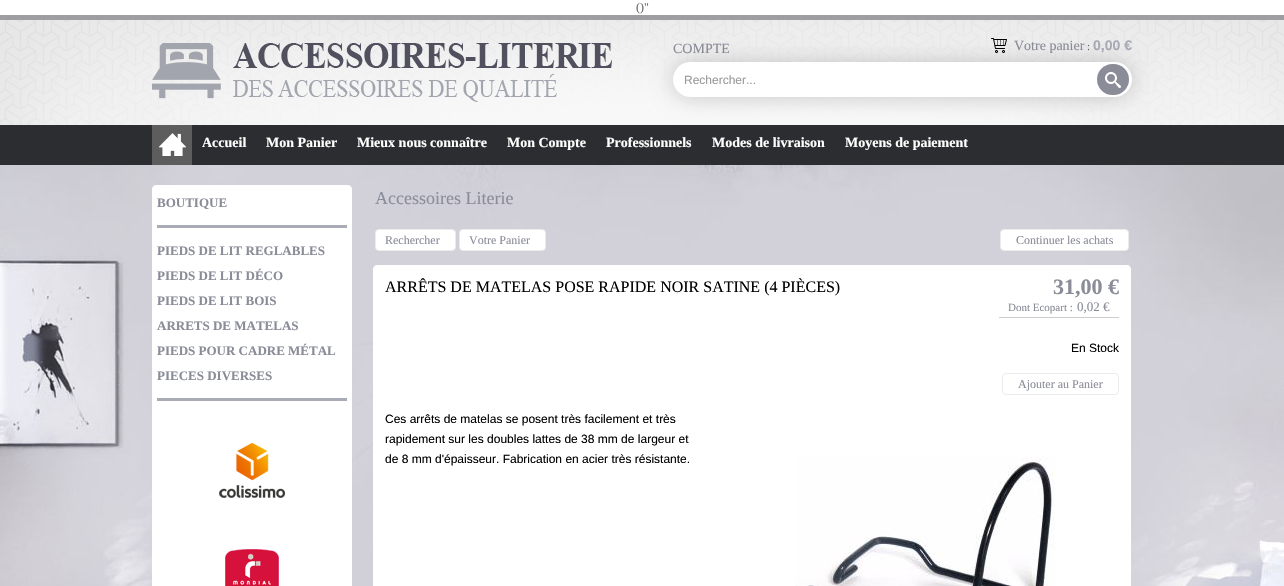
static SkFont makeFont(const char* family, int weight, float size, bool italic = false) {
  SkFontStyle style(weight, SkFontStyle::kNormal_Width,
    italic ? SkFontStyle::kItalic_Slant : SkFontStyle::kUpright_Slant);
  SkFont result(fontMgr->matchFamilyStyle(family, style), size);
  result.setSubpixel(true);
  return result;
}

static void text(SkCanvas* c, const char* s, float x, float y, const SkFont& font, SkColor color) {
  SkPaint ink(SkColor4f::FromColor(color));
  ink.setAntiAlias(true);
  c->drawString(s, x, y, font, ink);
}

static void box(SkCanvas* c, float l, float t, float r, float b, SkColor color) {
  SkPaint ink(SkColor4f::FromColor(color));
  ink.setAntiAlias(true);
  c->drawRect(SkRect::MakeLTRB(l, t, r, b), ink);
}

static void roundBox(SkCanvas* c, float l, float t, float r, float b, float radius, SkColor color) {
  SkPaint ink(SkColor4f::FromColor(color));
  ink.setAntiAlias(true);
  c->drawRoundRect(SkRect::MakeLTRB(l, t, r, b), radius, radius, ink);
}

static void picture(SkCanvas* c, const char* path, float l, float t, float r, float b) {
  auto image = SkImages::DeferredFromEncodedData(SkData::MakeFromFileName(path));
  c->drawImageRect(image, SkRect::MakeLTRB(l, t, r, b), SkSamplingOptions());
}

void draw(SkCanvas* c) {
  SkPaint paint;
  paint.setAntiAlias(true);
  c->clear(0xffffffff);
  SkFont face1 = makeFont("Liberation Serif", 400, 12);
  text(c, "()\"", 636, 11, face1, 0xff666666);
  picture(c, "img_01.png", 0, 15, 1284, 165);
  picture(c, "img_02.png", 152, 43, 612, 102);
  SkFont face2 = makeFont("Liberation Serif", 400, 14);
  text(c, "COMPTE", 673, 53, face2, 0xff8a8c98);
  picture(c, "img_03.png", 991, 38, 1007, 53);
  text(c, "Votre panier", 1014, 50, face2, 0xff8a8c98);
  SkFont face3 = makeFont("Liberation Serif", 400, 11);
  text(c, ":", 1087, 50, face3, 0xff666666);
  SkFont face4 = makeFont("Liberation Sans", 700, 14);
  text(c, "0,00 €", 1093, 50, face4, 0xffa9abb7);
  paint.setColor(0x33000000);
  paint.setMaskFilter(SkMaskFilter::MakeBlur(kNormal_SkBlurStyle, 11));
  c->drawRoundRect(SkRect::MakeLTRB(673, 62, 1132, 97), 17.5f, 17.5f, paint);
  paint.setMaskFilter(nullptr);
  roundBox(c, 673, 62, 1132, 97, 17.5f, 0xffffffff);
  SkFont face5 = makeFont("Liberation Sans", 400, 12);
  text(c, "Rechercher...", 684, 84, face5, 0xff999999);
  roundBox(c, 1097, 64, 1129, 95, 15.5f, 0xff8a8c98);
  picture(c, "img_04.png", 1105, 72, 1121, 88);
  picture(c, "img_05.png", 152, 125, 192, 165);
  SkFont face6 = makeFont("Liberation Serif", 700, 14);
  text(c, "Accueil", 202, 147, face6, 0xffffffff);
  text(c, "Mon Panier", 266, 147, face6, 0xffffffff);
  text(c, "Mieux nous connaître", 357, 147, face6, 0xffffffff);
  text(c, "Mon Compte", 507, 147, face6, 0xffffffff);
  text(c, "Professionnels", 606, 147, face6, 0xffffffff);
  text(c, "Modes de livraison", 712, 147, face6, 0xffffffff);
  text(c, "Moyens de paiement", 845, 147, face6, 0xffffffff);
  picture(c, "img_06.png", 0, 165, 1284, 586);
  paint.setColor(0xffffffff);
  c->drawPath(SkPathBuilder().moveTo(156, 185).lineTo(348, 185).cubicTo(350, 185, 352, 187, 352, 189).lineTo(352, 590).lineTo(152, 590).lineTo(152, 189).cubicTo(152, 187, 154, 185, 156, 185).close().detach(), paint);
  SkFont face7 = makeFont("Liberation Serif", 700, 13);
  text(c, "BOUTIQUE", 157, 207, face7, 0xff8a8c98);
  box(c, 157, 225, 347, 228, 0xffa9abb7);
  text(c, "PIEDS DE LIT REGLABLES", 157, 255, face7, 0xff8a8c98);
  text(c, "PIEDS DE LIT DÉCO", 157, 280, face7, 0xff8a8c98);
  text(c, "PIEDS DE LIT BOIS", 157, 305, face7, 0xff8a8c98);
  text(c, "ARRETS DE MATELAS", 157, 330, face7, 0xff8a8c98);
  text(c, "PIEDS POUR CADRE MÉTAL", 157, 355, face7, 0xff8a8c98);
  text(c, "PIECES DIVERSES", 157, 380, face7, 0xff8a8c98);
  box(c, 157, 398, 347, 401, 0xffa9abb7);
  picture(c, "img_07.png", 219, 443, 285, 498);
  picture(c, "img_08.png", 225, 549, 279, 586);
  SkFont face8 = makeFont("Liberation Serif", 400, 18);
  text(c, "Accessoires Literie", 375, 204, face8, 0xff8a8c98);
  c->drawRoundRect(SkRect::MakeLTRB(375.5f, 229.5f, 455.5f, 250.5f), 3.5f, 3.5f, paint);
  paint.setStyle(SkPaint::kStroke_Style);
  paint.setStrokeWidth(1);
  paint.setColor(0xffebebeb);
  c->drawRoundRect(SkRect::MakeLTRB(375.5f, 229.5f, 455.5f, 250.5f), 3.5f, 3.5f, paint);
  text(c, "Rechercher", 385, 244, face1, 0xff8a8c98);
  paint.setStyle(SkPaint::kFill_Style);
  paint.setColor(0xffffffff);
  c->drawRoundRect(SkRect::MakeLTRB(459.5f, 229.5f, 545.5f, 250.5f), 3.5f, 3.5f, paint);
  paint.setStyle(SkPaint::kStroke_Style);
  paint.setColor(0xffebebeb);
  c->drawRoundRect(SkRect::MakeLTRB(459.5f, 229.5f, 545.5f, 250.5f), 3.5f, 3.5f, paint);
  text(c, "Votre Panier", 469, 244, face1, 0xff8a8c98);
  paint.setStyle(SkPaint::kFill_Style);
  paint.setColor(0xffffffff);
  c->drawRoundRect(SkRect::MakeLTRB(1000.5f, 229.5f, 1128.5f, 250.5f), 3.5f, 3.5f, paint);
  paint.setStyle(SkPaint::kStroke_Style);
  paint.setColor(0xffebebeb);
  c->drawRoundRect(SkRect::MakeLTRB(1000.5f, 229.5f, 1128.5f, 250.5f), 3.5f, 3.5f, paint);
  text(c, "Continuer les achats", 1016, 244, face1, 0xff8a8c98);
  paint.setStyle(SkPaint::kFill_Style);
  paint.setColor(0xffffffff);
  c->drawPath(SkPathBuilder().moveTo(377, 265).lineTo(1127, 265).cubicTo(1129, 265, 1131, 267, 1131, 269).lineTo(1131, 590).lineTo(373, 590).lineTo(373, 269).cubicTo(373, 267, 375, 265, 377, 265).close().detach(), paint);
  SkFont face9 = makeFont("Liberation Serif", 400, 16);
  text(c, "ARRÊTS DE MATELAS POSE RAPIDE NOIR SATINE (4 PIÈCES)", 385, 292, face9, 0xff000000);
  SkFont face10 = makeFont("Liberation Serif", 700, 22);
  text(c, "31,00 €", 1053, 294, face10, 0xff8a8c98);
  box(c, 999, 317, 1119, 318, 0xffcccccc);
  text(c, "Dont Ecopart :", 1008, 311, face3, 0xff8a8c98);
  SkFont face11 = makeFont("Liberation Serif", 400, 13);
  text(c, "0,02 €", 1077, 311, face11, 0xff8a8c98);
  text(c, "En Stock", 1071, 352, face5, 0xff000000);
  paint.setStyle(SkPaint::kStroke_Style);
  paint.setColor(0xffebebeb);
  c->drawRoundRect(SkRect::MakeLTRB(1002.5f, 373.5f, 1118.5f, 394.5f), 3.5f, 3.5f, paint);
  text(c, "Ajouter au Panier", 1018, 388, face1, 0xff8a8c98);
  text(c, "Ces arrêts de matelas se posent très facilement et très", 385, 423, face5, 0xff000000);
  text(c, "rapidement sur les doubles lattes de 38 mm de largeur et", 385, 443, face5, 0xff000000);
  text(c, "de 8 mm d'épaisseur. Fabrication en acier très résistante.", 385, 463, face5, 0xff000000);
  picture(c, "img_09.png", 795, 457, 1055, 586);
}
